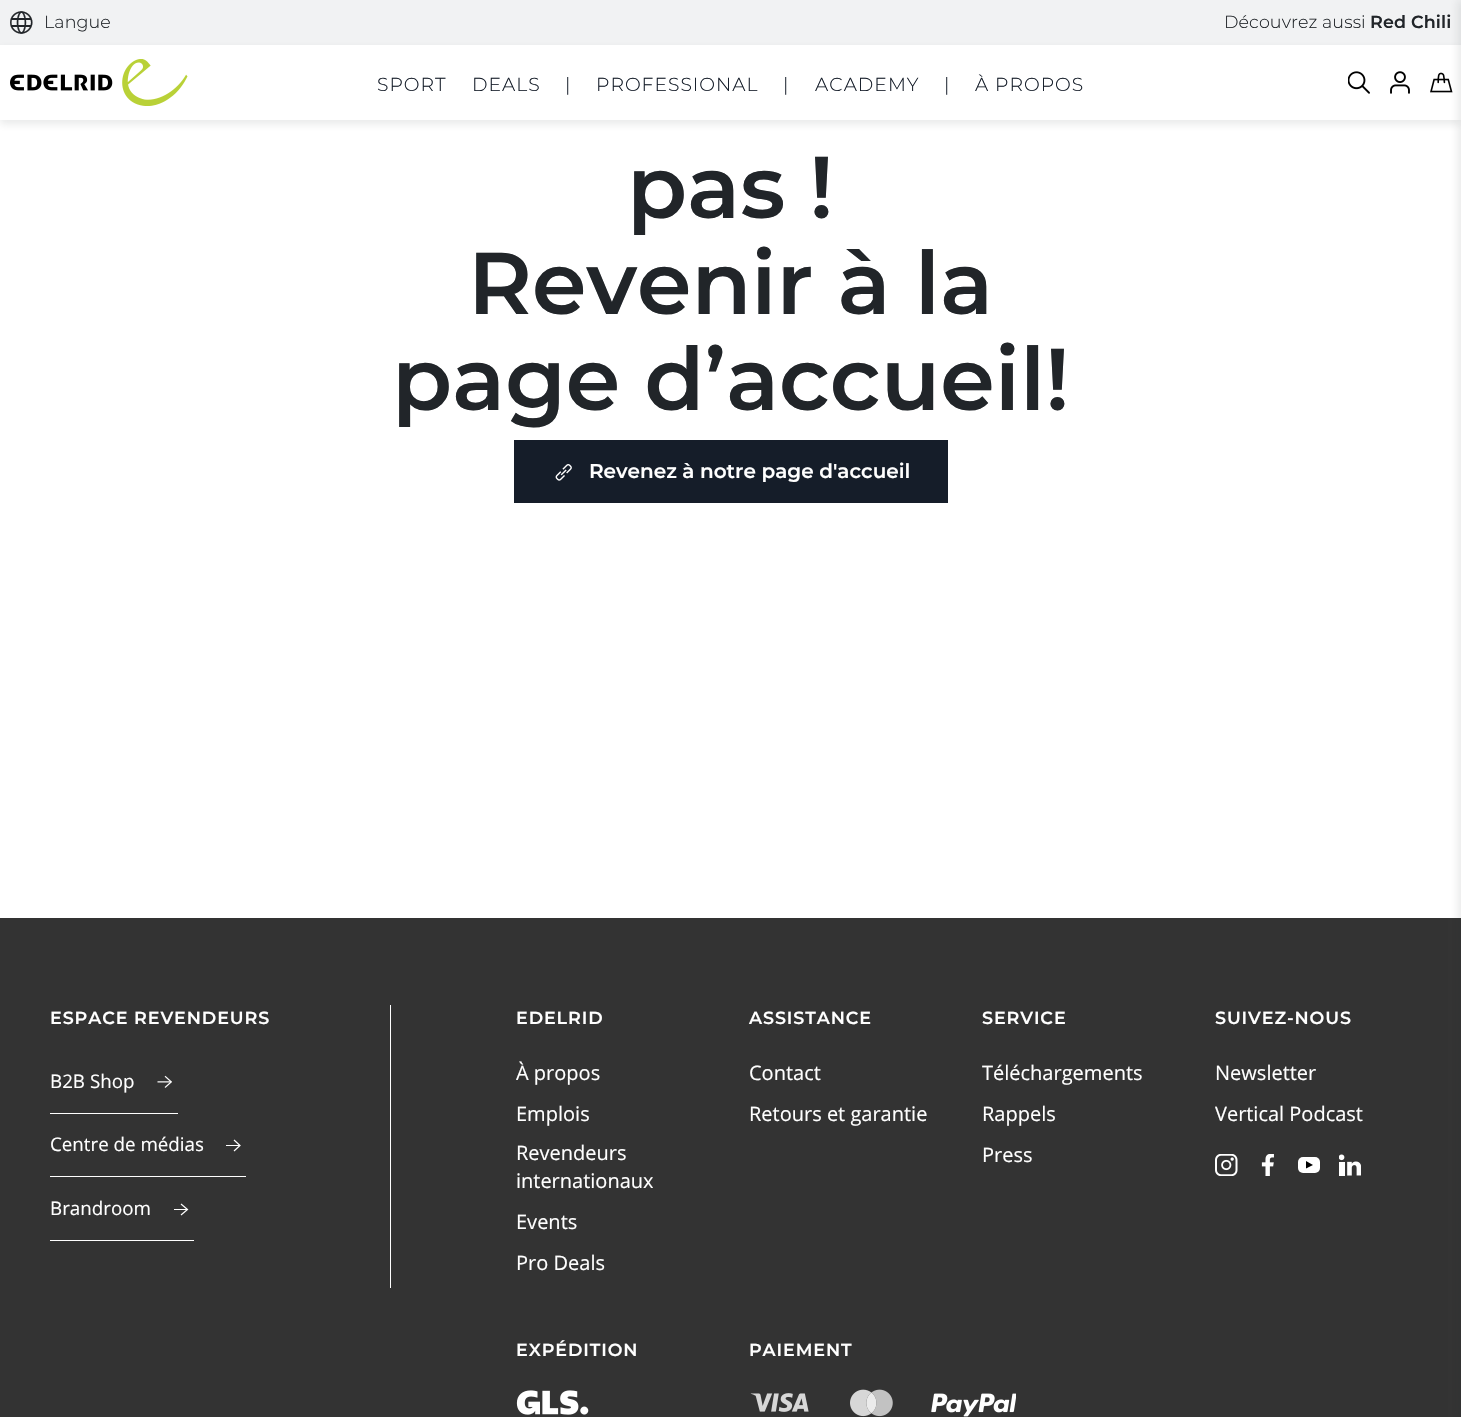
static SkFont makeFont(const char* family, int weight, float size, bool italic = false) {
  SkFontStyle style(weight, SkFontStyle::kNormal_Width,
    italic ? SkFontStyle::kItalic_Slant : SkFontStyle::kUpright_Slant);
  SkFont result(fontMgr->matchFamilyStyle(family, style), size);
  result.setSubpixel(true);
  return result;
}

static void text(SkCanvas* c, const char* s, float x, float y, const SkFont& font, SkColor color) {
  SkPaint ink(SkColor4f::FromColor(color));
  ink.setAntiAlias(true);
  c->drawString(s, x, y, font, ink);
}

static void spacedText(SkCanvas* c, const char* s, float x, float y, const SkFont& font, const SkPaint& ink, float letter, float word) {
  std::vector<SkGlyphID> glyphs(font.countText(s, strlen(s), SkTextEncoding::kUTF8));
  std::vector<float> xs(glyphs.size());
  font.textToGlyphs(s, strlen(s), SkTextEncoding::kUTF8, glyphs);
  font.getXPos(glyphs, xs, x);
  float extra = 0;
  for (size_t i = 0; i < glyphs.size(); i++) {
    xs[i] += extra;
    extra += letter + word * (glyphs[i] == font.unicharToGlyph(' '));
  }
  c->drawTextBlob(SkTextBlob::MakeFromPosHGlyphs(glyphs, xs, y, font), 0, 0, ink);
}

static void box(SkCanvas* c, float l, float t, float r, float b, SkColor color) {
  SkPaint ink(SkColor4f::FromColor(color));
  ink.setAntiAlias(true);
  c->drawRect(SkRect::MakeLTRB(l, t, r, b), ink);
}

static void roundBox(SkCanvas* c, float l, float t, float r, float b, float radius, SkColor color) {
  SkPaint ink(SkColor4f::FromColor(color));
  ink.setAntiAlias(true);
  c->drawRoundRect(SkRect::MakeLTRB(l, t, r, b), radius, radius, ink);
}

static void picture(SkCanvas* c, const char* path, float l, float t, float r, float b) {
  auto image = SkImages::DeferredFromEncodedData(SkData::MakeFromFileName(path));
  c->drawImageRect(image, SkRect::MakeLTRB(l, t, r, b), SkSamplingOptions());
}

void draw(SkCanvas* c) {
  SkPaint paint;
  paint.setAntiAlias(true);
  c->clear(0xffffffff);
  box(c, 0, 0, 1461, 45, 0xfff1f2f3);
  picture(c, "img_01.png", 10, 11, 33, 34);
  SkFont face1 = makeFont("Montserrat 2", 100, 17.5f);
  paint.setColor(0xff212529);
  spacedText(c, "Langue", 44, 28, face1, paint, 0.1f, 0);
  spacedText(c, "Découvrez aussi", 1224, 28, face1, paint, 0.1f, 0);
  SkFont face2 = makeFont("Montserrat", 100, 17.5f);
  spacedText(c, "Red Chili", 1370, 28, face2, paint, 0.1f, 0);
  paint.setColor(0x1a222529);
  paint.setMaskFilter(SkMaskFilter::MakeBlur(kNormal_SkBlurStyle, 4));
  c->drawRect(SkRect::MakeLTRB(0, 49, 1461, 124), paint);
  paint.setMaskFilter(nullptr);
  box(c, 0, 45, 1461, 120, 0xffffffff);
  picture(c, "img_02.png", 10, 59, 188, 106);
  SkFont face3 = makeFont("Montserrat 2", 100, 18.75f);
  paint.setColor(0xff151d29);
  spacedText(c, "SPORT", 377, 91, face3, paint, 1, 0);
  spacedText(c, "DEALS", 472, 91, face3, paint, 1, 0);
  spacedText(c, "|", 565, 91, face3, paint, 1, 0);
  spacedText(c, "PROFESSIONAL", 596, 91, face3, paint, 1, 0);
  spacedText(c, "|", 783, 91, face3, paint, 1, 0);
  spacedText(c, "ACADEMY", 815, 91, face3, paint, 1, 0);
  spacedText(c, "|", 944, 91, face3, paint, 1, 0);
  spacedText(c, "À PROPOS", 975, 91, face3, paint, 1, 0);
  picture(c, "img_03.png", 1348, 71, 1370, 94);
  picture(c, "img_04.png", 1390, 71, 1410, 94);
  picture(c, "img_05.png", 1430, 72, 1453, 93);
  box(c, 0, 918, 1461, 1417, 0xff333333);
  paint.setColor(0x1a222529);
  paint.setMaskFilter(SkMaskFilter::MakeBlur(kNormal_SkBlurStyle, 4));
  c->drawRect(SkRect::MakeLTRB(1458, 0, 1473, 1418), paint);
  paint.setMaskFilter(nullptr);
  SkFont face4 = makeFont("Montserrat", 100, 87.5f);
  text(c, "pas !", 627, 218, face4, 0xff212529);
  text(c, "Revenir à la", 468, 314, face4, 0xff212529);
  text(c, "page d’accueil!", 392, 410, face4, 0xff212529);
  box(c, 514, 440, 948, 503, 0xff151d29);
  picture(c, "img_06.png", 555, 464, 572, 481);
  SkFont face5 = makeFont("Montserrat", 100, 20);
  text(c, "Revenez à notre page d'accueil", 589, 478, face5, 0xffffffff);
  paint.setColor(0xffffffff);
  spacedText(c, "ESPACE REVENDEURS", 50, 1024, face2, paint, 0.9f, 0);
  box(c, 390, 1005, 391, 1288, 0xffffffff);
  box(c, 50, 1113, 178, 1114, 0xffffffff);
  SkFont face6 = makeFont("Open Sans", 400, 18.75f);
  text(c, "B2B Shop", 50, 1088, face6, 0xffffffff);
  picture(c, "img_07.png", 157, 1075, 172, 1088);
  box(c, 50, 1176, 246, 1177, 0xffffffff);
  text(c, "Centre de médias", 50, 1151, face6, 0xffffffff);
  paint.setStyle(SkPaint::kStroke_Style);
  paint.setStrokeWidth(1.2f);
  c->drawPath(SkPathBuilder().moveTo(234, 1140).lineTo(240, 1145.5f).lineTo(234, 1151).detach(), paint);
  box(c, 226, 1145, 240, 1146, 0xffffffff);
  box(c, 50, 1240, 194, 1241, 0xffffffff);
  text(c, "Brandroom", 50, 1215, face6, 0xffffffff);
  c->drawPath(SkPathBuilder().moveTo(181, 1204).lineTo(187.5f, 1209.5f).lineTo(181, 1215).detach(), paint);
  box(c, 174, 1209, 188, 1210, 0xffffffff);
  paint.setStyle(SkPaint::kFill_Style);
  spacedText(c, "EDELRID", 516, 1024, face2, paint, 0.9f, 0);
  SkFont face7 = makeFont("Open Sans", 400, 20);
  text(c, "À propos", 516, 1080, face7, 0xffffffff);
  text(c, "Emplois", 516, 1121, face7, 0xffffffff);
  text(c, "Revendeurs", 516, 1160, face7, 0xffffffff);
  text(c, "internationaux", 516, 1188, face7, 0xffffffff);
  text(c, "Events", 516, 1229, face7, 0xffffffff);
  text(c, "Pro Deals", 516, 1270, face7, 0xffffffff);
  spacedText(c, "ASSISTANCE", 749, 1024, face2, paint, 0.9f, 0);
  text(c, "Contact", 749, 1080, face7, 0xffffffff);
  text(c, "Retours et garantie", 749, 1121, face7, 0xffffffff);
  spacedText(c, "SERVICE", 982, 1024, face2, paint, 0.9f, 0);
  text(c, "Téléchargements", 982, 1080, face7, 0xffffffff);
  text(c, "Rappels", 982, 1121, face7, 0xffffffff);
  text(c, "Press", 982, 1162, face7, 0xffffffff);
  spacedText(c, "SUIVEZ-NOUS", 1215, 1024, face2, paint, 0.9f, 0);
  text(c, "Newsletter", 1215, 1080, face7, 0xffffffff);
  text(c, "Vertical Podcast", 1215, 1121, face7, 0xffffffff);
  picture(c, "img_08.png", 1215, 1154, 1238, 1176);
  picture(c, "img_09.png", 1261, 1154, 1274, 1176);
  roundBox(c, 1298, 1157, 1320, 1173, 5, 0xffffffff);
  paint.setColor(0xff000000);
  c->drawPath(SkPathBuilder().moveTo(1306, 1161).lineTo(1306, 1168.5f).lineTo(1313, 1165).close().detach(), paint);
  picture(c, "img_10.png", 1339, 1154, 1361, 1176);
  paint.setColor(0xffffffff);
  spacedText(c, "EXPÉDITION", 516, 1356, face2, paint, 0.9f, 0);
  picture(c, "img_11.png", 516, 1390, 589, 1415);
  spacedText(c, "PAIEMENT", 749, 1356, face2, paint, 0.9f, 0);
  picture(c, "img_12.png", 750, 1393, 809, 1412);
  picture(c, "img_13.png", 850, 1389, 893, 1417);
  picture(c, "img_14.png", 931, 1393, 1016, 1417);
}
